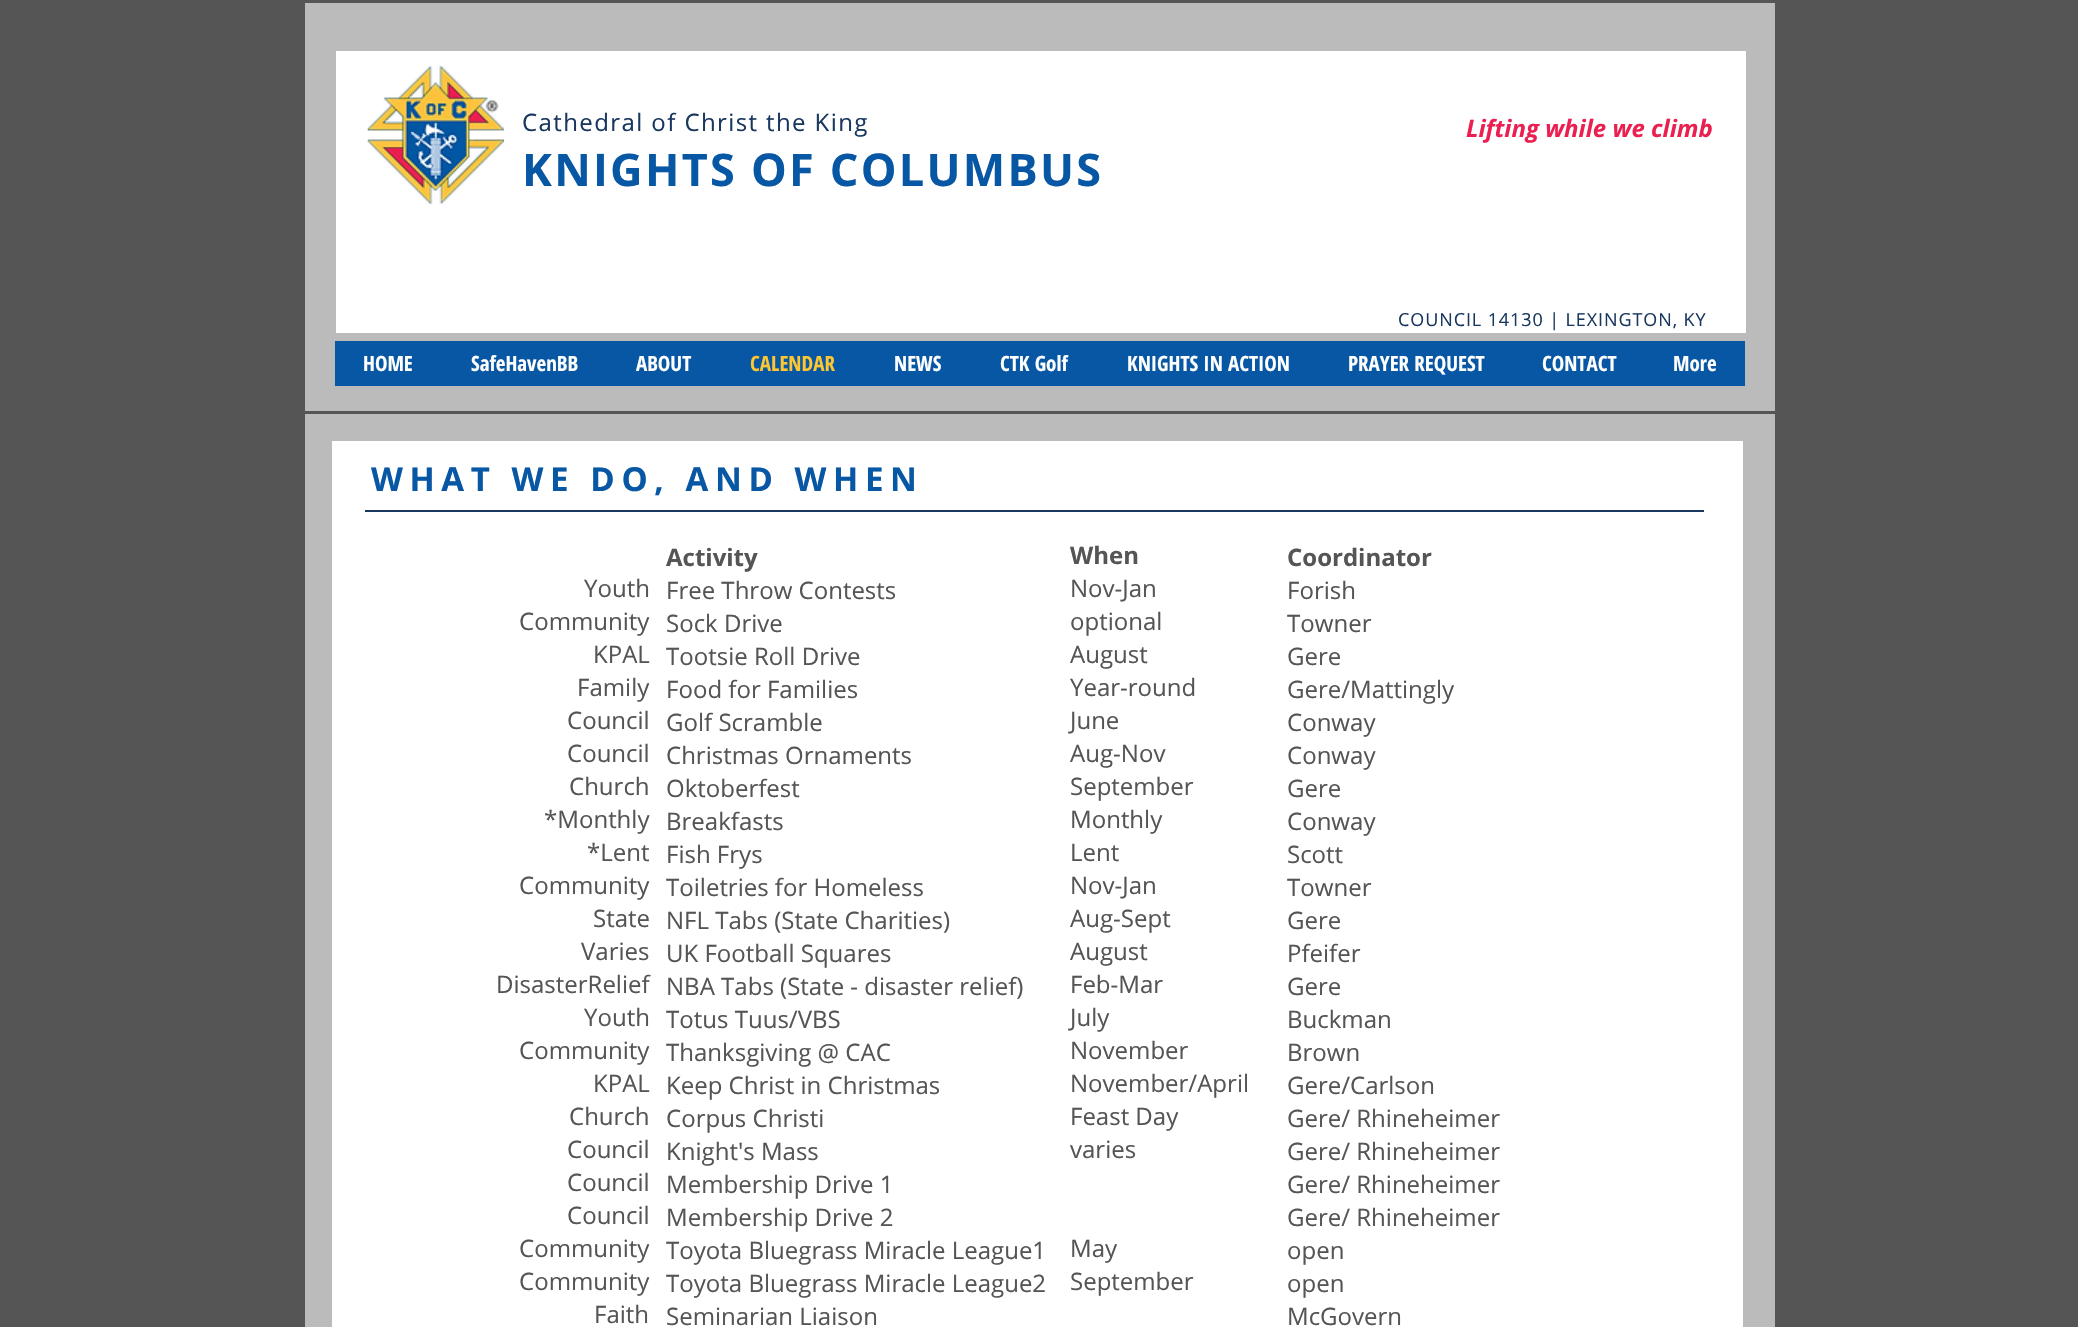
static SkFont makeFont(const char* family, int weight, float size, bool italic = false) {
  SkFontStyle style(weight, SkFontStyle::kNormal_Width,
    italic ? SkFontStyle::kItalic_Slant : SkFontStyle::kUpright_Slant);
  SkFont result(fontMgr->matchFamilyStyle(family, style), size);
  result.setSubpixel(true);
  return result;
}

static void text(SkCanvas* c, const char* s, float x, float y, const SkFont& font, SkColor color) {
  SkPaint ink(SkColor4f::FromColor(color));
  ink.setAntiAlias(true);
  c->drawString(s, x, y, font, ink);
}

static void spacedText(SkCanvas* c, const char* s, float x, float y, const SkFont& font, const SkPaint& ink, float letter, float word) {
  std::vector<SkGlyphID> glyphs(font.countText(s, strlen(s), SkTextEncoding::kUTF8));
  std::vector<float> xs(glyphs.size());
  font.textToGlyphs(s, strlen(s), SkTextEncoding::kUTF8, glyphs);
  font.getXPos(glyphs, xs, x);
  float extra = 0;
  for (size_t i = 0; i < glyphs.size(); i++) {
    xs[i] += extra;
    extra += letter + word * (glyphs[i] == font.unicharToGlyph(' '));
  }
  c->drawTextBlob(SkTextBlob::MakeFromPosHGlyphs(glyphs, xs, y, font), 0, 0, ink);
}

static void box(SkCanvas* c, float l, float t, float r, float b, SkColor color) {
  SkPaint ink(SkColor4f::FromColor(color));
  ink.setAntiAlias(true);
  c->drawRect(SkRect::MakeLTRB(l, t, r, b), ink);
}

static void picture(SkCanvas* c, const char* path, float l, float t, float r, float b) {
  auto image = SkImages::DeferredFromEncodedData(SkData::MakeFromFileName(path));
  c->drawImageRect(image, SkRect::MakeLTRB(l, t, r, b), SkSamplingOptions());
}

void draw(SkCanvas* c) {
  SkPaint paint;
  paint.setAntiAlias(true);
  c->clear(0xff555555);
  box(c, 305, 3, 1775, 411, 0xffbbbbbb);
  box(c, 336, 51, 1746, 333, 0xffffffff);
  picture(c, "img_01.png", 367, 66, 504, 204);
  SkFont face1 = makeFont("Open Sans", 400, 24);
  paint.setColor(0xff19375f);
  spacedText(c, "Cathedral of Christ the King", 522, 131, face1, paint, 1.4f, 0);
  SkFont face2 = makeFont("Open Sans", 700, 45);
  paint.setColor(0xff0757a4);
  spacedText(c, "KNIGHTS OF COLUMBUS", 522, 186, face2, paint, 2.25f, 0);
  SkFont face3 = makeFont("Open Sans", 700, 24, true);
  text(c, "Lifting while we climb", 1466, 137, face3, 0xffeb2051);
  SkFont face4 = makeFont("Open Sans", 400, 18);
  paint.setColor(0xff19375f);
  spacedText(c, "COUNCIL 14130 | LEXINGTON, KY", 1398, 326, face4, paint, 0.9f, 0);
  box(c, 335, 341, 1745, 386, 0xff0757a4);
  SkFont face5 = makeFont("Open Sans Condensed", 700, 21);
  text(c, "HOME", 363, 371, face5, 0xffffffff);
  text(c, "SafeHavenBB", 471, 371, face5, 0xffffffff);
  text(c, "ABOUT", 636, 371, face5, 0xffffffff);
  text(c, "CALENDAR", 750, 371, face5, 0xfffec630);
  text(c, "NEWS", 894, 371, face5, 0xffffffff);
  text(c, "CTK Golf", 1000, 371, face5, 0xffffffff);
  text(c, "KNIGHTS IN ACTION", 1127, 371, face5, 0xffffffff);
  text(c, "PRAYER REQUEST", 1348, 371, face5, 0xffffffff);
  text(c, "CONTACT", 1542, 371, face5, 0xffffffff);
  text(c, "More", 1673, 371, face5, 0xffffffff);
  box(c, 305, 414, 1775, 1327, 0xffbbbbbb);
  box(c, 332, 441, 1743, 1327, 0xffffffff);
  SkFont face6 = makeFont("Open Sans", 700, 33);
  paint.setColor(0xff0757a4);
  spacedText(c, "WHAT WE DO, AND WHEN", 371, 491, face6, paint, 6.6f, 0);
  box(c, 365, 510, 1704, 512, 0xff19375f);
  SkFont face7 = makeFont("Open Sans", 700, 24);
  text(c, "When", 1070, 564, face7, 0xff555555);
  text(c, "Nov-Jan", 1070, 597, face1, 0xff555555);
  text(c, "optional", 1070, 630, face1, 0xff555555);
  text(c, "August", 1070, 663, face1, 0xff555555);
  text(c, "Year-round", 1070, 696, face1, 0xff555555);
  text(c, "June", 1070, 729, face1, 0xff555555);
  text(c, "Aug-Nov", 1070, 762, face1, 0xff555555);
  text(c, "September", 1070, 795, face1, 0xff555555);
  text(c, "Monthly", 1070, 828, face1, 0xff555555);
  text(c, "Lent", 1070, 861, face1, 0xff555555);
  text(c, "Nov-Jan", 1070, 894, face1, 0xff555555);
  text(c, "Aug-Sept", 1070, 927, face1, 0xff555555);
  text(c, "August", 1070, 960, face1, 0xff555555);
  text(c, "Feb-Mar", 1070, 993, face1, 0xff555555);
  text(c, "July", 1070, 1026, face1, 0xff555555);
  text(c, "November", 1070, 1059, face1, 0xff555555);
  text(c, "November/April", 1070, 1092, face1, 0xff555555);
  text(c, "Feast Day", 1070, 1125, face1, 0xff555555);
  text(c, "varies", 1070, 1158, face1, 0xff555555);
  text(c, "May", 1070, 1257, face1, 0xff555555);
  text(c, "September", 1070, 1290, face1, 0xff555555);
  text(c, "Youth", 584, 597, face1, 0xff555555);
  text(c, "Community", 519, 630, face1, 0xff555555);
  text(c, "KPAL", 593, 663, face1, 0xff555555);
  text(c, "Family", 577, 696, face1, 0xff555555);
  text(c, "Council", 567, 729, face1, 0xff555555);
  text(c, "Council", 567, 762, face1, 0xff555555);
  text(c, "Church", 569, 795, face1, 0xff555555);
  text(c, "*Monthly", 544, 828, face1, 0xff555555);
  text(c, "*Lent", 587, 861, face1, 0xff555555);
  text(c, "Community", 519, 894, face1, 0xff555555);
  text(c, "State", 593, 927, face1, 0xff555555);
  text(c, "Varies", 581, 960, face1, 0xff555555);
  text(c, "DisasterRelief", 496, 993, face1, 0xff555555);
  text(c, "Youth", 584, 1026, face1, 0xff555555);
  text(c, "Community", 519, 1059, face1, 0xff555555);
  text(c, "KPAL", 593, 1092, face1, 0xff555555);
  text(c, "Church", 569, 1125, face1, 0xff555555);
  text(c, "Council", 567, 1158, face1, 0xff555555);
  text(c, "Council", 567, 1191, face1, 0xff555555);
  text(c, "Council", 567, 1224, face1, 0xff555555);
  text(c, "Community", 519, 1257, face1, 0xff555555);
  text(c, "Community", 519, 1290, face1, 0xff555555);
  text(c, "Faith", 594, 1323, face1, 0xff555555);
  text(c, "Activity", 666, 566, face7, 0xff555555);
  text(c, "Free Throw Contests", 666, 599, face1, 0xff555555);
  text(c, "Sock Drive", 666, 632, face1, 0xff555555);
  text(c, "Tootsie Roll Drive", 666, 665, face1, 0xff555555);
  text(c, "Food for Families", 666, 698, face1, 0xff555555);
  text(c, "Golf Scramble", 666, 731, face1, 0xff555555);
  text(c, "Christmas Ornaments", 666, 764, face1, 0xff555555);
  text(c, "Oktoberfest", 666, 797, face1, 0xff555555);
  text(c, "Breakfasts", 666, 830, face1, 0xff555555);
  text(c, "Fish Frys", 666, 863, face1, 0xff555555);
  text(c, "Toiletries for Homeless", 666, 896, face1, 0xff555555);
  text(c, "NFL Tabs (State Charities)", 666, 929, face1, 0xff555555);
  text(c, "UK Football Squares", 666, 962, face1, 0xff555555);
  text(c, "NBA Tabs (State - disaster relief)", 666, 995, face1, 0xff555555);
  text(c, "Totus Tuus/VBS", 666, 1028, face1, 0xff555555);
  text(c, "Thanksgiving @ CAC", 666, 1061, face1, 0xff555555);
  text(c, "Keep Christ in Christmas", 666, 1094, face1, 0xff555555);
  text(c, "Corpus Christi", 666, 1127, face1, 0xff555555);
  text(c, "Knight's Mass", 666, 1160, face1, 0xff555555);
  text(c, "Membership Drive 1", 666, 1193, face1, 0xff555555);
  text(c, "Membership Drive 2", 666, 1226, face1, 0xff555555);
  text(c, "Toyota Bluegrass Miracle League1", 666, 1259, face1, 0xff555555);
  text(c, "Toyota Bluegrass Miracle League2", 666, 1292, face1, 0xff555555);
  text(c, "Seminarian Liaison", 666, 1325, face1, 0xff555555);
  text(c, "Coordinator", 1287, 566, face7, 0xff555555);
  text(c, "Forish", 1287, 599, face1, 0xff555555);
  text(c, "Towner", 1287, 632, face1, 0xff555555);
  text(c, "Gere", 1287, 665, face1, 0xff555555);
  text(c, "Gere/Mattingly", 1287, 698, face1, 0xff555555);
  text(c, "Conway", 1287, 731, face1, 0xff555555);
  text(c, "Conway", 1287, 764, face1, 0xff555555);
  text(c, "Gere", 1287, 797, face1, 0xff555555);
  text(c, "Conway", 1287, 830, face1, 0xff555555);
  text(c, "Scott", 1287, 863, face1, 0xff555555);
  text(c, "Towner", 1287, 896, face1, 0xff555555);
  text(c, "Gere", 1287, 929, face1, 0xff555555);
  text(c, "Pfeifer", 1287, 962, face1, 0xff555555);
  text(c, "Gere", 1287, 995, face1, 0xff555555);
  text(c, "Buckman", 1287, 1028, face1, 0xff555555);
  text(c, "Brown", 1287, 1061, face1, 0xff555555);
  text(c, "Gere/Carlson", 1287, 1094, face1, 0xff555555);
  text(c, "Gere/ Rhineheimer", 1287, 1127, face1, 0xff555555);
  text(c, "Gere/ Rhineheimer", 1287, 1160, face1, 0xff555555);
  text(c, "Gere/ Rhineheimer", 1287, 1193, face1, 0xff555555);
  text(c, "Gere/ Rhineheimer", 1287, 1226, face1, 0xff555555);
  text(c, "open", 1287, 1259, face1, 0xff555555);
  text(c, "open", 1287, 1292, face1, 0xff555555);
  text(c, "McGovern", 1287, 1325, face1, 0xff555555);
}
